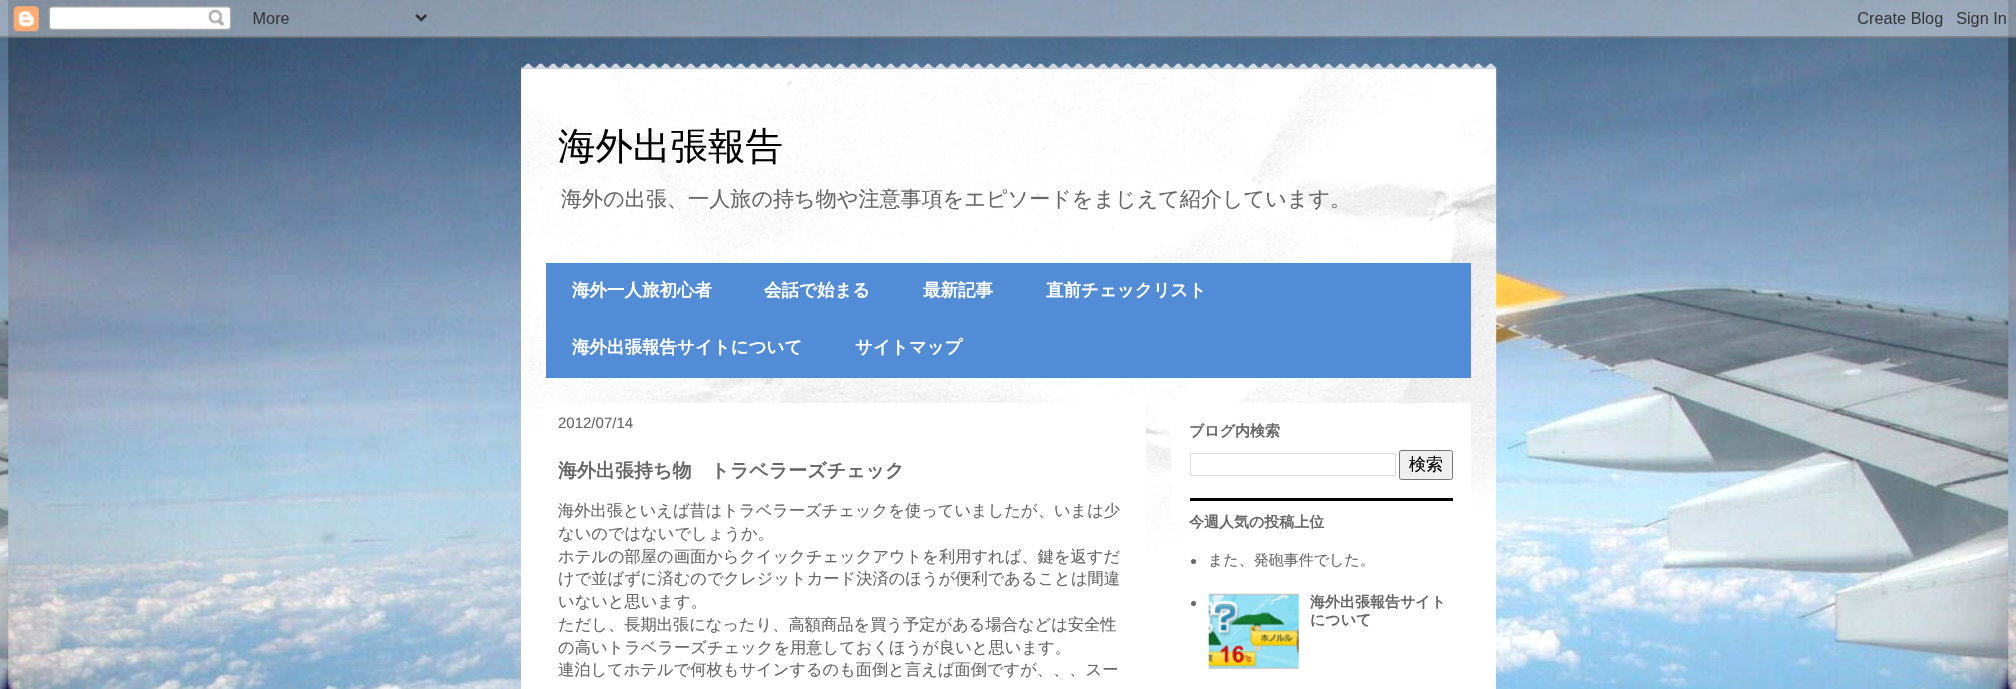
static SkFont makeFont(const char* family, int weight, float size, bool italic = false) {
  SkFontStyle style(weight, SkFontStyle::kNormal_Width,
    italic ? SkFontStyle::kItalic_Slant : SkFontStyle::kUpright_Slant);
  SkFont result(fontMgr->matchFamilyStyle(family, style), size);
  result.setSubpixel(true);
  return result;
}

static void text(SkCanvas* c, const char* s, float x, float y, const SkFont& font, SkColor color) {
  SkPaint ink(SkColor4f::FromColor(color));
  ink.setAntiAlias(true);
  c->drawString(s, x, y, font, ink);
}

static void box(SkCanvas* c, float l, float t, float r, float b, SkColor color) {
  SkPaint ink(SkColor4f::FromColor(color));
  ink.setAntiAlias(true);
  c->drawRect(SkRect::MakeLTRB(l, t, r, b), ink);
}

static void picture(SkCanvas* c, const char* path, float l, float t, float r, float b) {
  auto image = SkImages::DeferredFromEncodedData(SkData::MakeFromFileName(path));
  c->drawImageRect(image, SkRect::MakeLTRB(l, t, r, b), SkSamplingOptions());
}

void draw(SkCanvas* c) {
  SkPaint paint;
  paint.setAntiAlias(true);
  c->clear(0xffffffff);
  picture(c, "img_01.png", 0, 0, 2016, 689);
  picture(c, "img_02.png", 0, 0, 2016, 38);
  picture(c, "img_03.png", 521, 63, 1497, 69);
  box(c, 521, 69, 1496, 689, 0xffffffff);
  picture(c, "img_04.png", 521, 68, 1497, 552);
  SkFont face1 = makeFont("WenQuanYi Zen Hei", 500, 37.5f);
  text(c, "海外出張報告", 558, 159, face1, 0xff000000);
  SkFont face2 = makeFont("WenQuanYi Zen Hei", 500, 21.1f);
  text(c, "海外の出張、一人旅の持ち物や注意事項をエピソードをまじえて紹介しています。", 561, 206, face2, 0xff666666);
  box(c, 546, 263, 1471, 378, 0xff538cd6);
  SkFont face3 = makeFont("WenQuanYi Zen Hei", 700, 17.5f);
  text(c, "海外一人旅初心者", 572, 296, face3, 0xffffffff);
  text(c, "会話で始まる", 764, 296, face3, 0xffffffff);
  text(c, "最新記事", 923, 296, face3, 0xffffffff);
  text(c, "直前チェックリスト", 1046, 296, face3, 0xffffffff);
  text(c, "海外出張報告サイトについて", 572, 353, face3, 0xffffffff);
  text(c, "サイトマップ", 855, 353, face3, 0xffffffff);
  box(c, 1171, 403, 1471, 522, 0xffffffff);
  box(c, 546, 403, 1146, 552, 0xffffffff);
  SkFont face4 = makeFont("Liberation Sans", 400, 15);
  text(c, "2012/07/14", 558, 428, face4, 0xff666666);
  SkFont face5 = makeFont("WenQuanYi Zen Hei", 700, 19);
  text(c, "海外出張持ち物　トラベラーズチェック", 558, 477, face5, 0xff666666);
  SkFont face6 = makeFont("WenQuanYi Zen Hei", 500, 16.25f);
  text(c, "海外出張といえば昔はトラベラーズチェックを使っていましたが、いまは少", 558, 516, face6, 0xff666666);
  text(c, "ないのではないでしょうか。", 558, 539, face6, 0xff666666);
  text(c, "ホテルの部屋の画面からクイックチェックアウトを利用すれば、鍵を返すだ", 558, 562, face6, 0xff666666);
  text(c, "けで並ばずに済むのでクレジットカード決済のほうが便利であることは間違", 558, 584, face6, 0xff666666);
  text(c, "いないと思います。", 558, 607, face6, 0xff666666);
  text(c, "ただし、長期出張になったり、高額商品を買う予定がある場合などは安全性", 558, 630, face6, 0xff666666);
  text(c, "の高いトラベラーズチェックを用意しておくほうが良いと思います。", 558, 653, face6, 0xff666666);
  text(c, "連泊してホテルで何枚もサインするのも面倒と言えば面倒ですが、、、スー", 558, 675, face6, 0xff666666);
  box(c, 1190, 498, 1453, 501, 0xff000000);
  SkFont face7 = makeFont("WenQuanYi Zen Hei", 700, 15);
  text(c, "ブログ内検索", 1189, 436, face7, 0xff666666);
  paint.setStyle(SkPaint::kStroke_Style);
  paint.setStrokeWidth(1);
  paint.setColor(0xffdddddd);
  c->drawRect(SkRect::MakeLTRB(1190.5f, 453.5f, 1395.5f, 475.5f), paint);
  paint.setStyle(SkPaint::kFill_Style);
  paint.setColor(0xffefefef);
  c->drawRoundRect(SkRect::MakeLTRB(1399.5f, 450.5f, 1452.5f, 479.5f), 2, 2, paint);
  paint.setStyle(SkPaint::kStroke_Style);
  paint.setColor(0xff767676);
  c->drawRoundRect(SkRect::MakeLTRB(1399.5f, 450.5f, 1452.5f, 479.5f), 2, 2, paint);
  SkFont face8 = makeFont("WenQuanYi Zen Hei", 500, 17);
  text(c, "検索", 1409, 470, face8, 0xff000000);
  text(c, "今週人気の投稿上位", 1189, 527, face7, 0xff666666);
  paint.setStyle(SkPaint::kFill_Style);
  paint.setColor(0xff666666);
  c->drawCircle(1193.5f, 561.5f, 2.5f, paint);
  SkFont face9 = makeFont("WenQuanYi Zen Hei", 500, 15);
  text(c, "また、発砲事件でした。", 1208, 565, face9, 0xff666666);
  c->drawCircle(1193.5f, 603.5f, 2.5f, paint);
  picture(c, "img_05.png", 1208, 593, 1299, 669);
  text(c, "海外出張報告サイト", 1310, 607, face7, 0xff666666);
  text(c, "について", 1310, 625, face7, 0xff666666);
}
